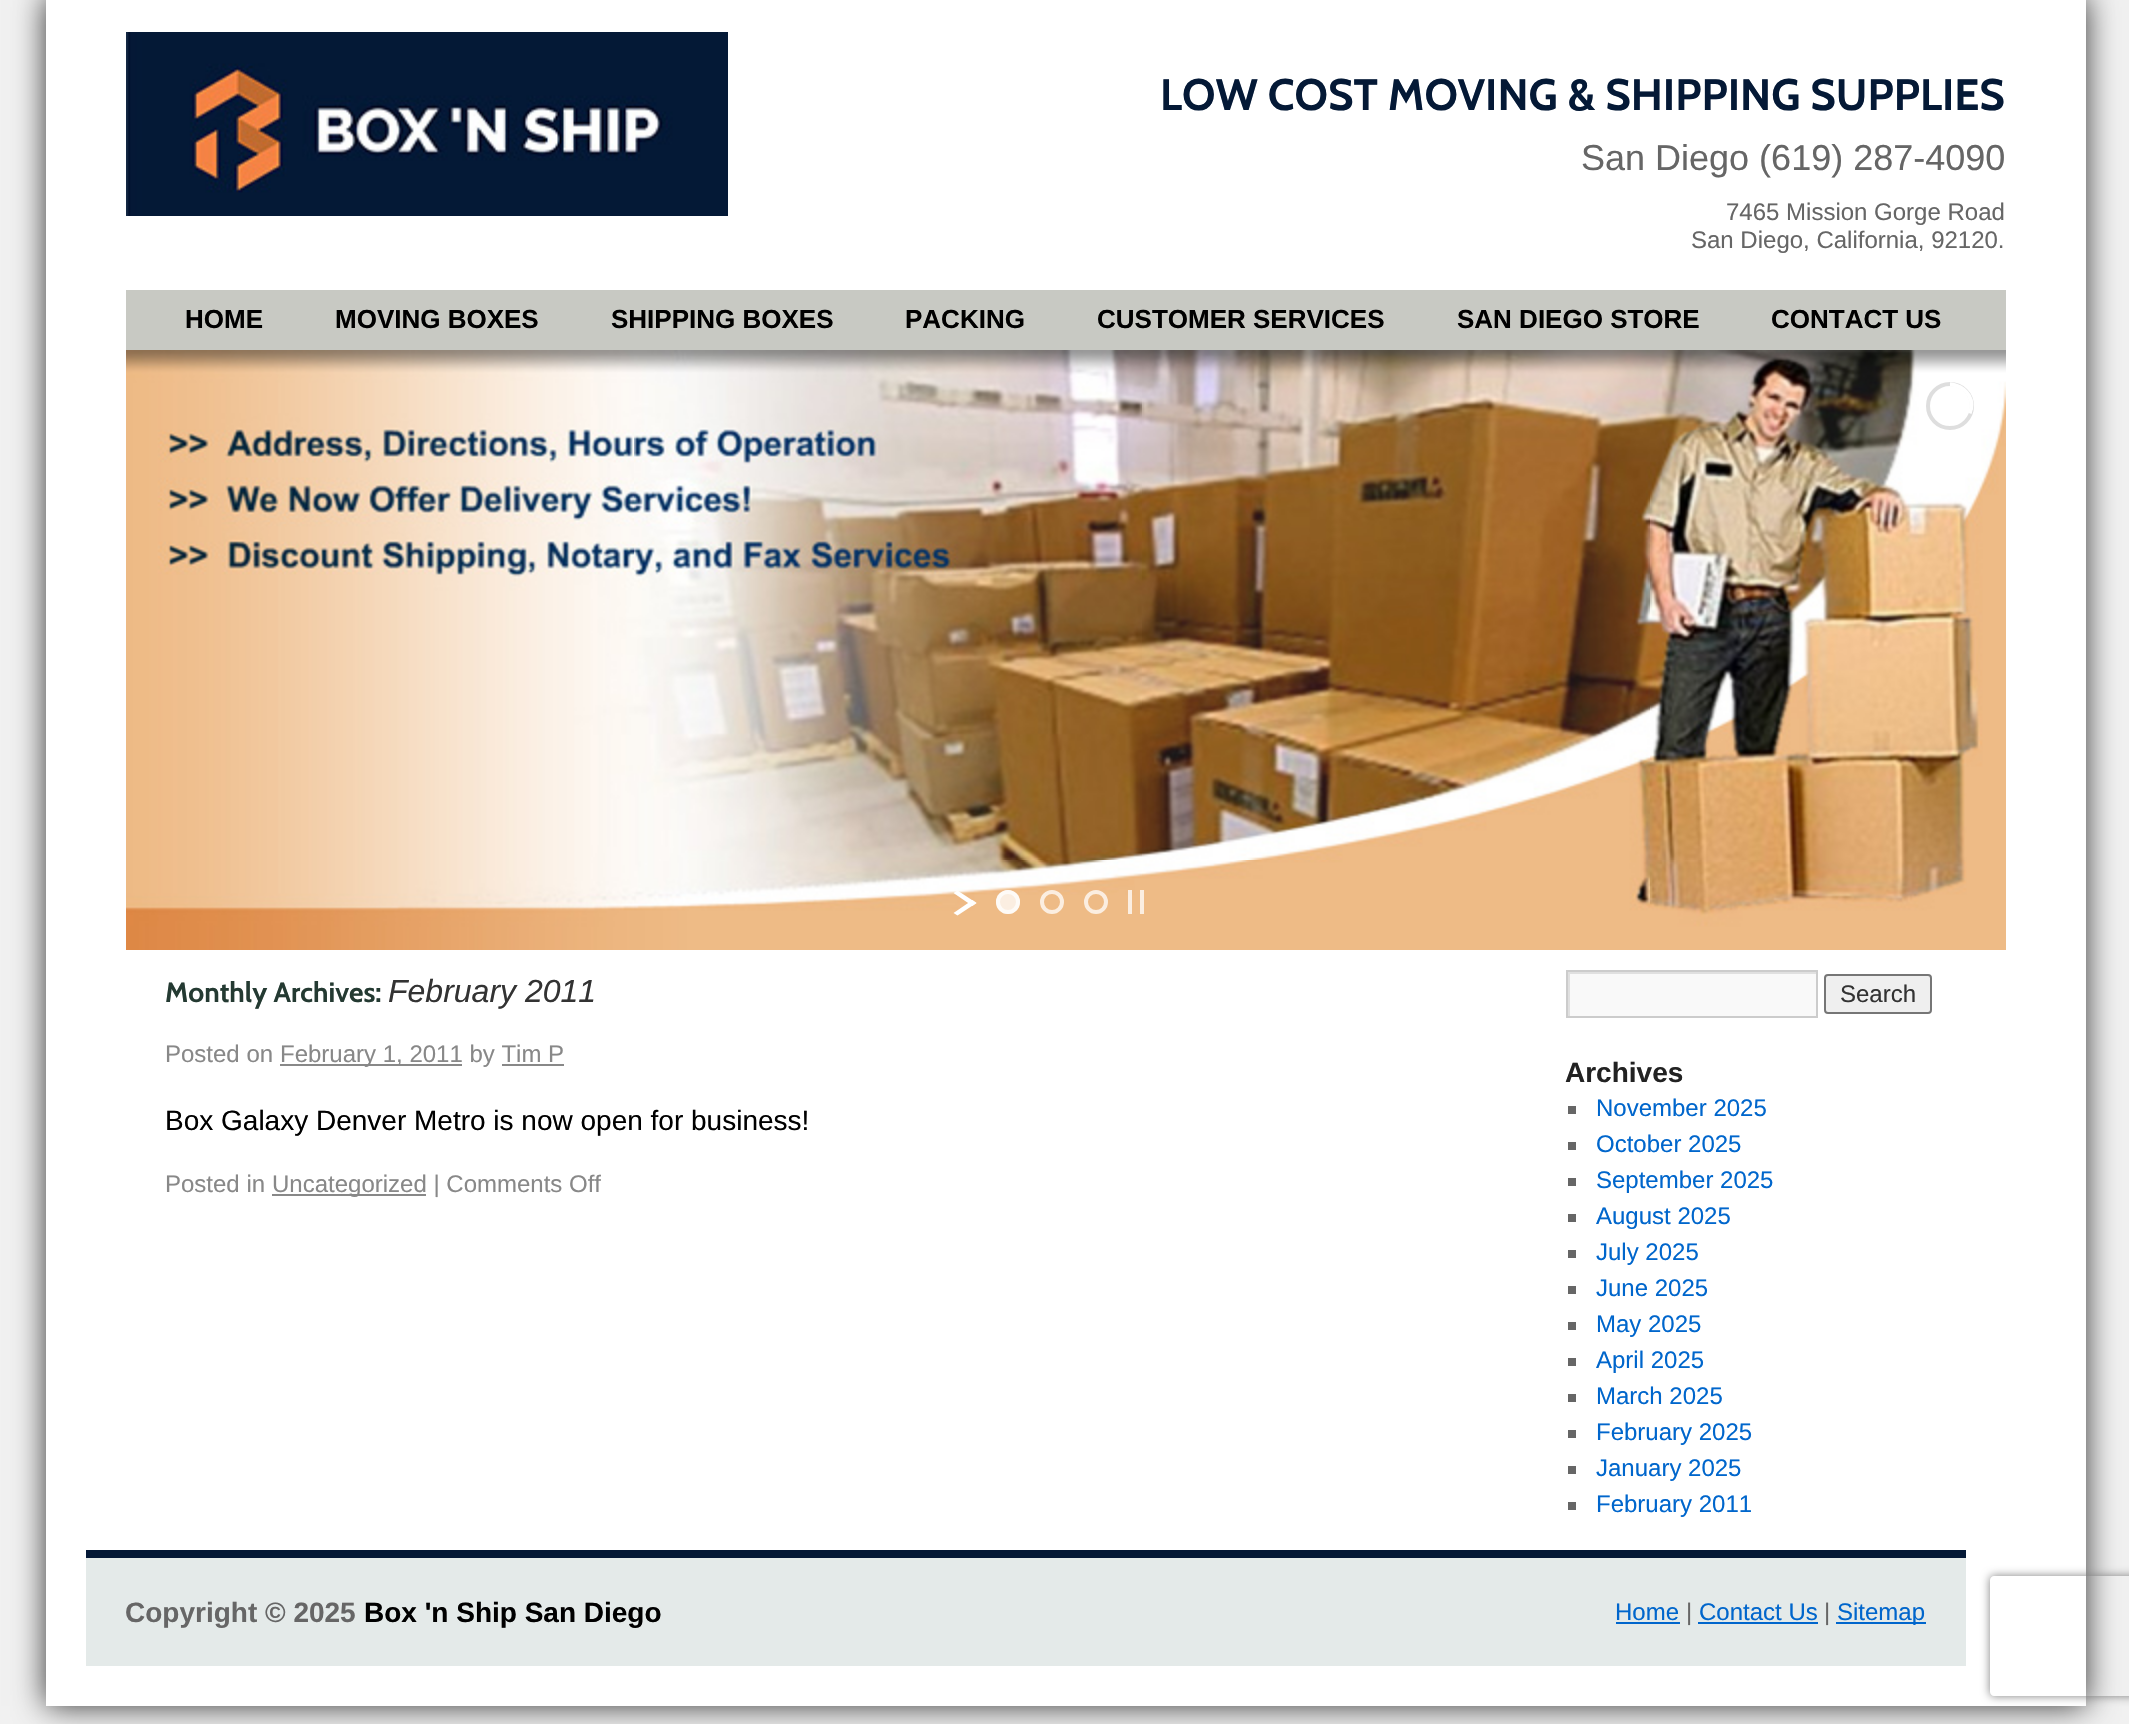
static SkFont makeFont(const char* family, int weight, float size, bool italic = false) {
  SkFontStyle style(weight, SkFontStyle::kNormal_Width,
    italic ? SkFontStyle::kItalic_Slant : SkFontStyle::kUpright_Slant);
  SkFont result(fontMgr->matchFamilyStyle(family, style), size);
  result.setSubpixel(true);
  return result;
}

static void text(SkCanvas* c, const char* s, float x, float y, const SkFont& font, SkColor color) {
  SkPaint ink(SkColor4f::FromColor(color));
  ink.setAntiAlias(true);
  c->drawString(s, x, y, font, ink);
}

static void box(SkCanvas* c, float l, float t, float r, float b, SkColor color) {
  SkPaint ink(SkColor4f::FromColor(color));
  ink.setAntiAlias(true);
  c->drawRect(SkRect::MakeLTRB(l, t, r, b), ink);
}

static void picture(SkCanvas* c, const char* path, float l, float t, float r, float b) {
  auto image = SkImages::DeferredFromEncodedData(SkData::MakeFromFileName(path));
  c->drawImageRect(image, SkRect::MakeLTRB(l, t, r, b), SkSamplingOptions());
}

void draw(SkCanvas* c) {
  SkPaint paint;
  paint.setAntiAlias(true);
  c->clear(0xfff1f1f1);
  paint.setColor(0xff333333);
  paint.setMaskFilter(SkMaskFilter::MakeBlur(kNormal_SkBlurStyle, 15));
  c->drawRect(SkRect::MakeLTRB(46, -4, 2086, 1706), paint);
  paint.setMaskFilter(nullptr);
  box(c, 46, 0, 2086, 1706, 0xffffffff);
  picture(c, "img_01.png", 126, 32, 728, 216);
  SkFont face1 = makeFont("Cabin", 700, 44);
  text(c, "LOW COST MOVING & SHIPPING SUPPLIES", 1160, 110, face1, 0xff041936);
  SkFont face2 = makeFont("Liberation Sans", 400, 36);
  text(c, "San Diego (619) 287-4090", 1581, 170, face2, 0xff666666);
  SkFont face3 = makeFont("Liberation Sans", 400, 24);
  text(c, "7465 Mission Gorge Road", 1726, 220, face3, 0xff666666);
  text(c, "San Diego, California, 92120.", 1691, 248, face3, 0xff666666);
  box(c, 126, 290, 2006, 350, 0xffc8c9c3);
  SkFont face4 = makeFont("Liberation Sans", 700, 26);
  text(c, "HOME", 185, 328, face4, 0xff000000);
  text(c, "MOVING BOXES", 335, 328, face4, 0xff000000);
  text(c, "SHIPPING BOXES", 611, 328, face4, 0xff000000);
  text(c, "PACKING", 905, 328, face4, 0xff000000);
  text(c, "CUSTOMER SERVICES", 1097, 328, face4, 0xff000000);
  text(c, "SAN DIEGO STORE", 1457, 328, face4, 0xff000000);
  text(c, "CONTACT US", 1771, 328, face4, 0xff000000);
  picture(c, "img_02.png", 126, 350, 2006, 950);
  paint.setStyle(SkPaint::kStroke_Style);
  paint.setStrokeWidth(4);
  paint.setColor(0xffdedede);
  c->drawCircle(1950, 406, 22, paint);
  c->save();
  c->clipRect(SkRect::MakeLTRB(1950, 382, 1974, 430));
  c->clipPath(SkPathBuilder().moveTo(1979.5f, 391).lineTo(1971.5f, 414).lineTo(1926.5f, 398).lineTo(1934, 375.5f).close().detach(), true);
  paint.setColor(0xffffffff);
  c->drawPath(SkPathBuilder().moveTo(1970, 413).cubicTo(1960, 440.5f, 1918.5f, 426, 1928, 399).cubicTo(1938, 371.5f, 1979.5f, 386, 1970, 413).close().detach(), paint);
  c->restore();
  paint.setStyle(SkPaint::kFill_Style);
  c->drawPath(SkPathBuilder().moveTo(957.5f, 890.5f).lineTo(976.5f, 903).lineTo(972.5f, 906).lineTo(953.5f, 893).close().detach(), paint);
  c->drawPath(SkPathBuilder().moveTo(972.5f, 900).lineTo(976.5f, 903).lineTo(957.5f, 915.5f).lineTo(953.5f, 913).close().detach(), paint);
  paint.setColor(0xbfffffff);
  c->drawCircle(1008, 902, 12, paint);
  paint.setStyle(SkPaint::kStroke_Style);
  c->drawCircle(1008, 902, 10, paint);
  c->drawCircle(1052, 902, 10, paint);
  c->drawCircle(1096, 902, 10, paint);
  box(c, 1140, 890, 1144, 914, 0xfffbeee1);
  box(c, 1128, 890, 1132, 914, 0xfffbeee1);
  SkFont face5 = makeFont("Cabin", 700, 28);
  text(c, "Monthly Archives:", 165, 1002, face5, 0xff243a32);
  SkFont face6 = makeFont("Liberation Sans", 400, 32, true);
  text(c, "February 2011", 388, 1002, face6, 0xff333333);
  text(c, "Posted on", 165, 1062, face3, 0xff888888);
  box(c, 280, 1064, 462, 1066, 0xff888888);
  text(c, "February 1, 2011 by Tim P", 280, 1062, face3, 0xff888888);
  box(c, 502, 1064, 564, 1066, 0xff888888);
  SkFont face7 = makeFont("Liberation Sans", 400, 28);
  text(c, "Box Galaxy Denver Metro is now open for business!", 165, 1130, face7, 0xff000000);
  text(c, "Posted in", 165, 1192, face3, 0xff888888);
  box(c, 272, 1194, 426, 1196, 0xff888888);
  text(c, "Uncategorized | Comments Off", 272, 1192, face3, 0xff888888);
  box(c, 1570, 974, 1816, 1016, 0xfff9f9f9);
  c->save();
  c->clipRect(SkRect::MakeLTRB(1568, 972, 1816, 1016));
  paint.setStyle(SkPaint::kFill_Style);
  paint.setColor(0xffe0e0e0);
  c->drawPath(SkPathBuilder(SkPathFillType::kEvenOdd).moveTo(1370, 774).lineTo(2014, 774).lineTo(2014, 1214).lineTo(1370, 1214).close().moveTo(1570, 974).lineTo(1818, 974).lineTo(1818, 1018).lineTo(1570, 1018).close().detach(), paint);
  c->restore();
  paint.setStyle(SkPaint::kStroke_Style);
  paint.setStrokeWidth(2);
  paint.setColor(0xffcccccc);
  c->drawRect(SkRect::MakeLTRB(1567, 971, 1817, 1017), paint);
  paint.setStyle(SkPaint::kFill_Style);
  paint.setColor(0xffefefef);
  c->drawRoundRect(SkRect::MakeLTRB(1825, 975, 1931, 1013), 3, 3, paint);
  paint.setStyle(SkPaint::kStroke_Style);
  paint.setColor(0xff767676);
  c->drawRoundRect(SkRect::MakeLTRB(1825, 975, 1931, 1013), 3, 3, paint);
  text(c, "Search", 1840, 1002, face3, 0xff333333);
  SkFont face8 = makeFont("Liberation Sans", 700, 28);
  text(c, "Archives", 1565, 1082, face8, 0xff222222);
  box(c, 1568, 1106, 1576, 1114, 0xff666666);
  text(c, "November 2025", 1596, 1116, face3, 0xff0066cc);
  box(c, 1568, 1142, 1576, 1150, 0xff666666);
  text(c, "October 2025", 1596, 1152, face3, 0xff0066cc);
  box(c, 1568, 1178, 1576, 1186, 0xff666666);
  text(c, "September 2025", 1596, 1188, face3, 0xff0066cc);
  box(c, 1568, 1214, 1576, 1222, 0xff666666);
  text(c, "August 2025", 1596, 1224, face3, 0xff0066cc);
  box(c, 1568, 1250, 1576, 1258, 0xff666666);
  text(c, "July 2025", 1596, 1260, face3, 0xff0066cc);
  box(c, 1568, 1286, 1576, 1294, 0xff666666);
  text(c, "June 2025", 1596, 1296, face3, 0xff0066cc);
  box(c, 1568, 1322, 1576, 1330, 0xff666666);
  text(c, "May 2025", 1596, 1332, face3, 0xff0066cc);
  box(c, 1568, 1358, 1576, 1366, 0xff666666);
  text(c, "April 2025", 1596, 1368, face3, 0xff0066cc);
  box(c, 1568, 1394, 1576, 1402, 0xff666666);
  text(c, "March 2025", 1596, 1404, face3, 0xff0066cc);
  box(c, 1568, 1430, 1576, 1438, 0xff666666);
  text(c, "February 2025", 1596, 1440, face3, 0xff0066cc);
  box(c, 1568, 1466, 1576, 1474, 0xff666666);
  text(c, "January 2025", 1596, 1476, face3, 0xff0066cc);
  box(c, 1568, 1502, 1576, 1510, 0xff666666);
  text(c, "February 2011", 1596, 1512, face3, 0xff0066cc);
  box(c, 86, 1558, 1966, 1666, 0xffe4eae9);
  box(c, 86, 1550, 1966, 1558, 0xff041936);
  text(c, "Copyright © 2025", 125, 1622, face8, 0xff666666);
  text(c, "Box 'n Ship San Diego", 364, 1622, face8, 0xff000000);
  text(c, "Home", 1615, 1620, face3, 0xff0066cc);
  box(c, 1616, 1622, 1680, 1624, 0xff0066cc);
  text(c, "|", 1686, 1620, face3, 0xff666666);
  text(c, "Contact Us", 1699, 1620, face3, 0xff0066cc);
  box(c, 1698, 1622, 1818, 1624, 0xff0066cc);
  text(c, "|", 1824, 1620, face3, 0xff666666);
  box(c, 1836, 1622, 1926, 1624, 0xff0066cc);
  text(c, "Sitemap", 1837, 1620, face3, 0xff0066cc);
  c->save();
  c->clipPath(SkPathBuilder(SkPathFillType::kEvenOdd).moveTo(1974, 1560).lineTo(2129, 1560).lineTo(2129, 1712).lineTo(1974, 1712).close().moveTo(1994, 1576).lineTo(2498, 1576).cubicTo(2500, 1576, 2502, 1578, 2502, 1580).lineTo(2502, 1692).cubicTo(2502, 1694, 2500, 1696, 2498, 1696).lineTo(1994, 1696).cubicTo(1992, 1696, 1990, 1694, 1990, 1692).lineTo(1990, 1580).cubicTo(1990, 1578, 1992, 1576, 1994, 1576).close().detach(), true);
  paint.setStyle(SkPaint::kFill_Style);
  paint.setColor(0xff808080);
  paint.setMaskFilter(SkMaskFilter::MakeBlur(kNormal_SkBlurStyle, 5));
  c->drawRoundRect(SkRect::MakeLTRB(1990, 1576, 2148, 1696), 4, 4, paint);
  paint.setMaskFilter(nullptr);
  c->restore();
}
